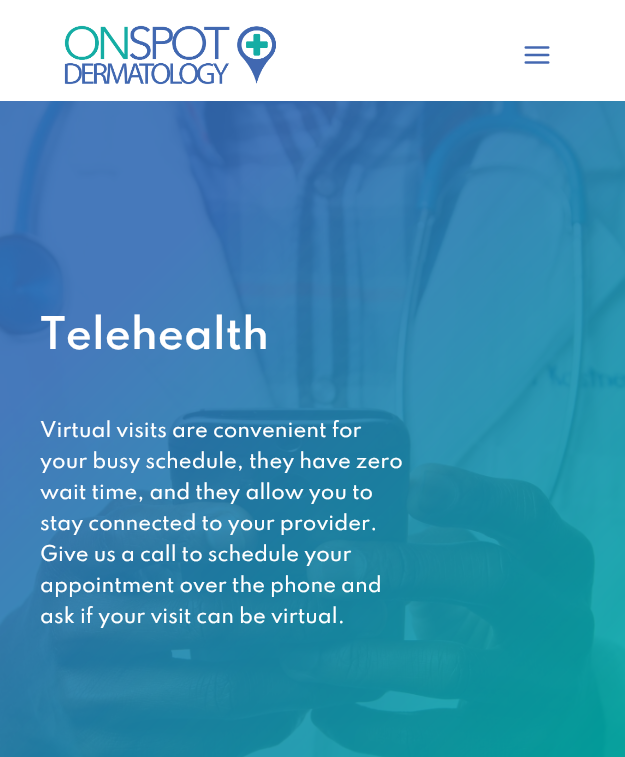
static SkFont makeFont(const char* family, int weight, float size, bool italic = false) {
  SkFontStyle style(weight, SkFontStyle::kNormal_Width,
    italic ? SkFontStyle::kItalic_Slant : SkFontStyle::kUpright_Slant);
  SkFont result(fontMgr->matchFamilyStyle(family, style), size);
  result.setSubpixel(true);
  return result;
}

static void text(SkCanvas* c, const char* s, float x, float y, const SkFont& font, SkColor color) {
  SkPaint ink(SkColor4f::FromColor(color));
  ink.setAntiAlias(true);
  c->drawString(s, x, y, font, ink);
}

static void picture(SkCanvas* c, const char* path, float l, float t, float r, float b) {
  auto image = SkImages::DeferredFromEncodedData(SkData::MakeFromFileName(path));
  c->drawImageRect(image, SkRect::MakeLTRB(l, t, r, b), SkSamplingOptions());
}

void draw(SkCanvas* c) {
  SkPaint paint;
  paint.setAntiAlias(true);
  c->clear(0xffffffff);
  picture(c, "img_01.png", 64, 25, 276, 85);
  picture(c, "img_02.png", 524, 46, 550, 64);
  picture(c, "img_03.png", 0, 101, 625, 757);
  SkFont face1 = makeFont("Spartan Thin", 600, 40);
  text(c, "Telehealth", 40, 349, face1, 0xffffffff);
  SkFont face2 = makeFont("Spartan Thin", 500, 19.4f);
  text(c, "Virtual visits are convenient for", 40, 437, face2, 0xffffffff);
  text(c, "your busy schedule, they have zero", 40, 468, face2, 0xffffffff);
  text(c, "wait time, and they allow you to", 40, 499, face2, 0xffffffff);
  text(c, "stay connected to your provider.", 40, 530, face2, 0xffffffff);
  text(c, "Give us a call to schedule your", 40, 561, face2, 0xffffffff);
  text(c, "appointment over the phone and", 40, 592, face2, 0xffffffff);
  text(c, "ask if your visit can be virtual.", 40, 623, face2, 0xffffffff);
}
